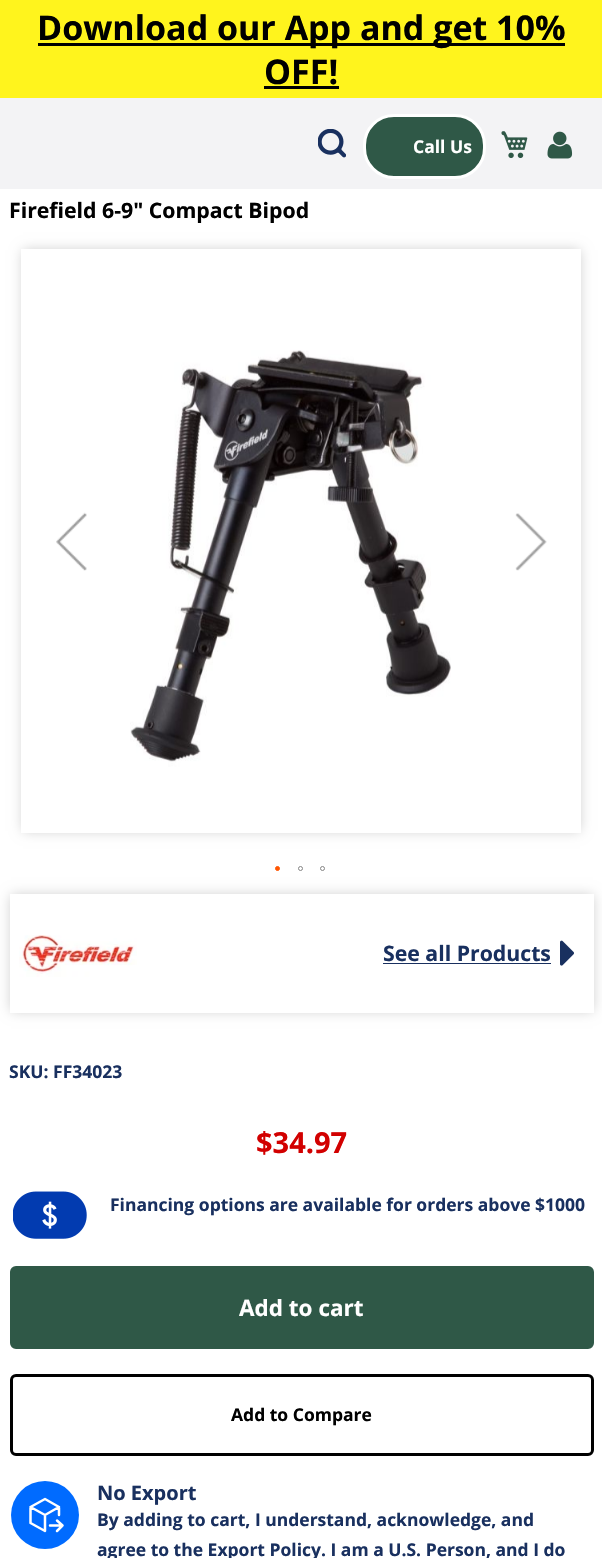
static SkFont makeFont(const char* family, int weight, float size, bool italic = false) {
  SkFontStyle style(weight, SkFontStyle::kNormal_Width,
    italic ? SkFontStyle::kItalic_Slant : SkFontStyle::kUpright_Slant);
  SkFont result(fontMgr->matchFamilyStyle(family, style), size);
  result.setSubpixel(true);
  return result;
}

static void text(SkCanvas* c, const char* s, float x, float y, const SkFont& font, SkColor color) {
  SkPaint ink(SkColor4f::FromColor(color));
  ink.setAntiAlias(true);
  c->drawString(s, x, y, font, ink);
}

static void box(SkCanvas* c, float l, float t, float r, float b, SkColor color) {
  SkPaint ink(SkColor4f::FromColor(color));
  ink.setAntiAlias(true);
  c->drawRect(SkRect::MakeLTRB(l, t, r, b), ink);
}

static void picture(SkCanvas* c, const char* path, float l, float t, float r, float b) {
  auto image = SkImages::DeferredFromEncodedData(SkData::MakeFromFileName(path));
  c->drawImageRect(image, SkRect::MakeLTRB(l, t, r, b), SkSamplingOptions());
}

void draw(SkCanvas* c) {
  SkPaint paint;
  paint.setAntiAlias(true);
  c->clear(0xffffffff);
  box(c, 0, 0, 602, 98, 0xfffff41d);
  box(c, 38, 43, 565, 46, 0xff000000);
  SkFont face1 = makeFont("Open Sans", 700, 34);
  text(c, "Download our App and get 10%", 37, 40, face1, 0xff000000);
  text(c, "OFF!", 264, 84, face1, 0xff000000);
  box(c, 264, 86, 339, 89, 0xff000000);
  box(c, 0, 98, 602, 189, 0xfff3f3f5);
  picture(c, "img_01.png", 318, 129, 346, 158);
  paint.setColor(0xff2f5847);
  c->drawRoundRect(SkRect::MakeLTRB(364.5f, 115.5f, 484.5f, 177.5f), 29.5f, 29.5f, paint);
  paint.setStyle(SkPaint::kStroke_Style);
  paint.setStrokeWidth(3);
  paint.setColor(0xffffffff);
  c->drawRoundRect(SkRect::MakeLTRB(364.5f, 115.5f, 484.5f, 177.5f), 29.5f, 29.5f, paint);
  SkFont face2 = makeFont("Open Sans", 700, 17.5f);
  text(c, "Call Us", 413, 153, face2, 0xffffffff);
  picture(c, "img_02.png", 501, 131, 528, 159);
  picture(c, "img_03.png", 547, 131, 573, 159);
  SkFont face3 = makeFont("Open Sans", 700, 21.25f);
  text(c, "Firefield 6-9\" Compact Bipod", 9, 218, face3, 0xff000000);
  c->save();
  c->clipPath(SkPathBuilder(SkPathFillType::kEvenOdd).moveTo(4, 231).lineTo(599, 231).lineTo(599, 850).lineTo(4, 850).close().moveTo(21, 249).lineTo(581, 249).lineTo(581, 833).lineTo(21, 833).close().detach(), true);
  paint.setStyle(SkPaint::kFill_Style);
  paint.setColor(0x33000000);
  paint.setMaskFilter(SkMaskFilter::MakeBlur(kNormal_SkBlurStyle, 6));
  c->drawRect(SkRect::MakeLTRB(23, 250, 580, 831), paint);
  paint.setMaskFilter(nullptr);
  c->restore();
  picture(c, "img_04.png", 21, 262, 451, 820);
  box(c, 29, 832, 121, 833, 0x4dffffff);
  picture(c, "img_05.png", 56, 512, 87, 571);
  box(c, 481, 832, 574, 833, 0x4dffffff);
  picture(c, "img_06.png", 515, 513, 547, 571);
  paint.setColor(0xffff5501);
  c->drawCircle(277.5f, 868.5f, 2, paint);
  paint.setStyle(SkPaint::kStroke_Style);
  paint.setStrokeWidth(1);
  c->drawCircle(277.5f, 868.5f, 2, paint);
  paint.setColor(0xff858585);
  c->drawCircle(300.5f, 868.5f, 2, paint);
  c->drawCircle(322.5f, 868.5f, 2, paint);
  c->save();
  c->clipPath(SkPathBuilder(SkPathFillType::kEvenOdd).moveTo(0, 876).lineTo(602, 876).lineTo(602, 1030).lineTo(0, 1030).close().moveTo(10, 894).lineTo(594, 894).lineTo(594, 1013).lineTo(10, 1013).close().detach(), true);
  paint.setStyle(SkPaint::kFill_Style);
  paint.setColor(0x33000000);
  paint.setMaskFilter(SkMaskFilter::MakeBlur(kNormal_SkBlurStyle, 6));
  c->drawRect(SkRect::MakeLTRB(11, 895, 593, 1011), paint);
  paint.setMaskFilter(nullptr);
  c->restore();
  picture(c, "img_07.png", 19, 935, 137, 1013);
  text(c, "See all Products", 383, 961, face3, 0xff19305f);
  box(c, 383, 963, 551, 964, 0xff19305f);
  picture(c, "img_08.png", 560, 940, 574, 966);
  text(c, "SKU: FF34023", 9, 1078, face2, 0xff19305f);
  SkFont face4 = makeFont("Open Sans", 700, 29);
  text(c, "$34.97", 256, 1153, face4, 0xffd20000);
  picture(c, "img_09.png", 13, 1191, 87, 1239);
  text(c, "Financing options are available for orders above $1000", 110, 1211, face2, 0xff19305f);
  paint.setColor(0xff2f5847);
  c->drawRoundRect(SkRect::MakeLTRB(11.5f, 1267.5f, 592.5f, 1347.5f), 4.5f, 4.5f, paint);
  paint.setStyle(SkPaint::kStroke_Style);
  paint.setStrokeWidth(3);
  c->drawRoundRect(SkRect::MakeLTRB(11.5f, 1267.5f, 592.5f, 1347.5f), 4.5f, 4.5f, paint);
  SkFont face5 = makeFont("Open Sans", 700, 22.5f);
  text(c, "Add to cart", 239, 1316, face5, 0xffffffff);
  paint.setColor(0xff000000);
  c->drawRoundRect(SkRect::MakeLTRB(11.5f, 1375.5f, 592.5f, 1454.5f), 4.5f, 4.5f, paint);
  text(c, "Add to Compare", 231, 1421, face2, 0xff000000);
  paint.setStyle(SkPaint::kFill_Style);
  paint.setColor(0xff006bff);
  c->drawCircle(45, 1515, 34, paint);
  paint.setStyle(SkPaint::kStroke_Style);
  paint.setStrokeWidth(2.5f);
  paint.setStrokeCap(SkPaint::kRound_Cap);
  paint.setStrokeJoin(SkPaint::kRound_Join);
  paint.setColor(0xffffffff);
  c->drawPath(SkPathBuilder().moveTo(30.5f, 1507).lineTo(30.5f, 1523).lineTo(45, 1531).lineTo(45, 1515).moveTo(30.5f, 1507).lineTo(45, 1499).lineTo(59, 1507).moveTo(30.5f, 1507).lineTo(45, 1515).moveTo(59, 1507).lineTo(59, 1515).moveTo(59, 1507).lineTo(45, 1515).moveTo(50, 1525.5f).lineTo(62.5f, 1525.5f).moveTo(62.5f, 1525.5f).lineTo(57, 1520.5f).moveTo(62.5f, 1525.5f).lineTo(57, 1531).detach(), paint);
  SkFont face6 = makeFont("Open Sans", 700, 20);
  text(c, "No Export", 97, 1500, face6, 0xff19305f);
  text(c, "By adding to cart, I understand, acknowledge, and", 97, 1526, face2, 0xff19305f);
  text(c, "agree to the Export Policy. I am a U.S. Person, and I do", 97, 1556, face2, 0xff19305f);
}
